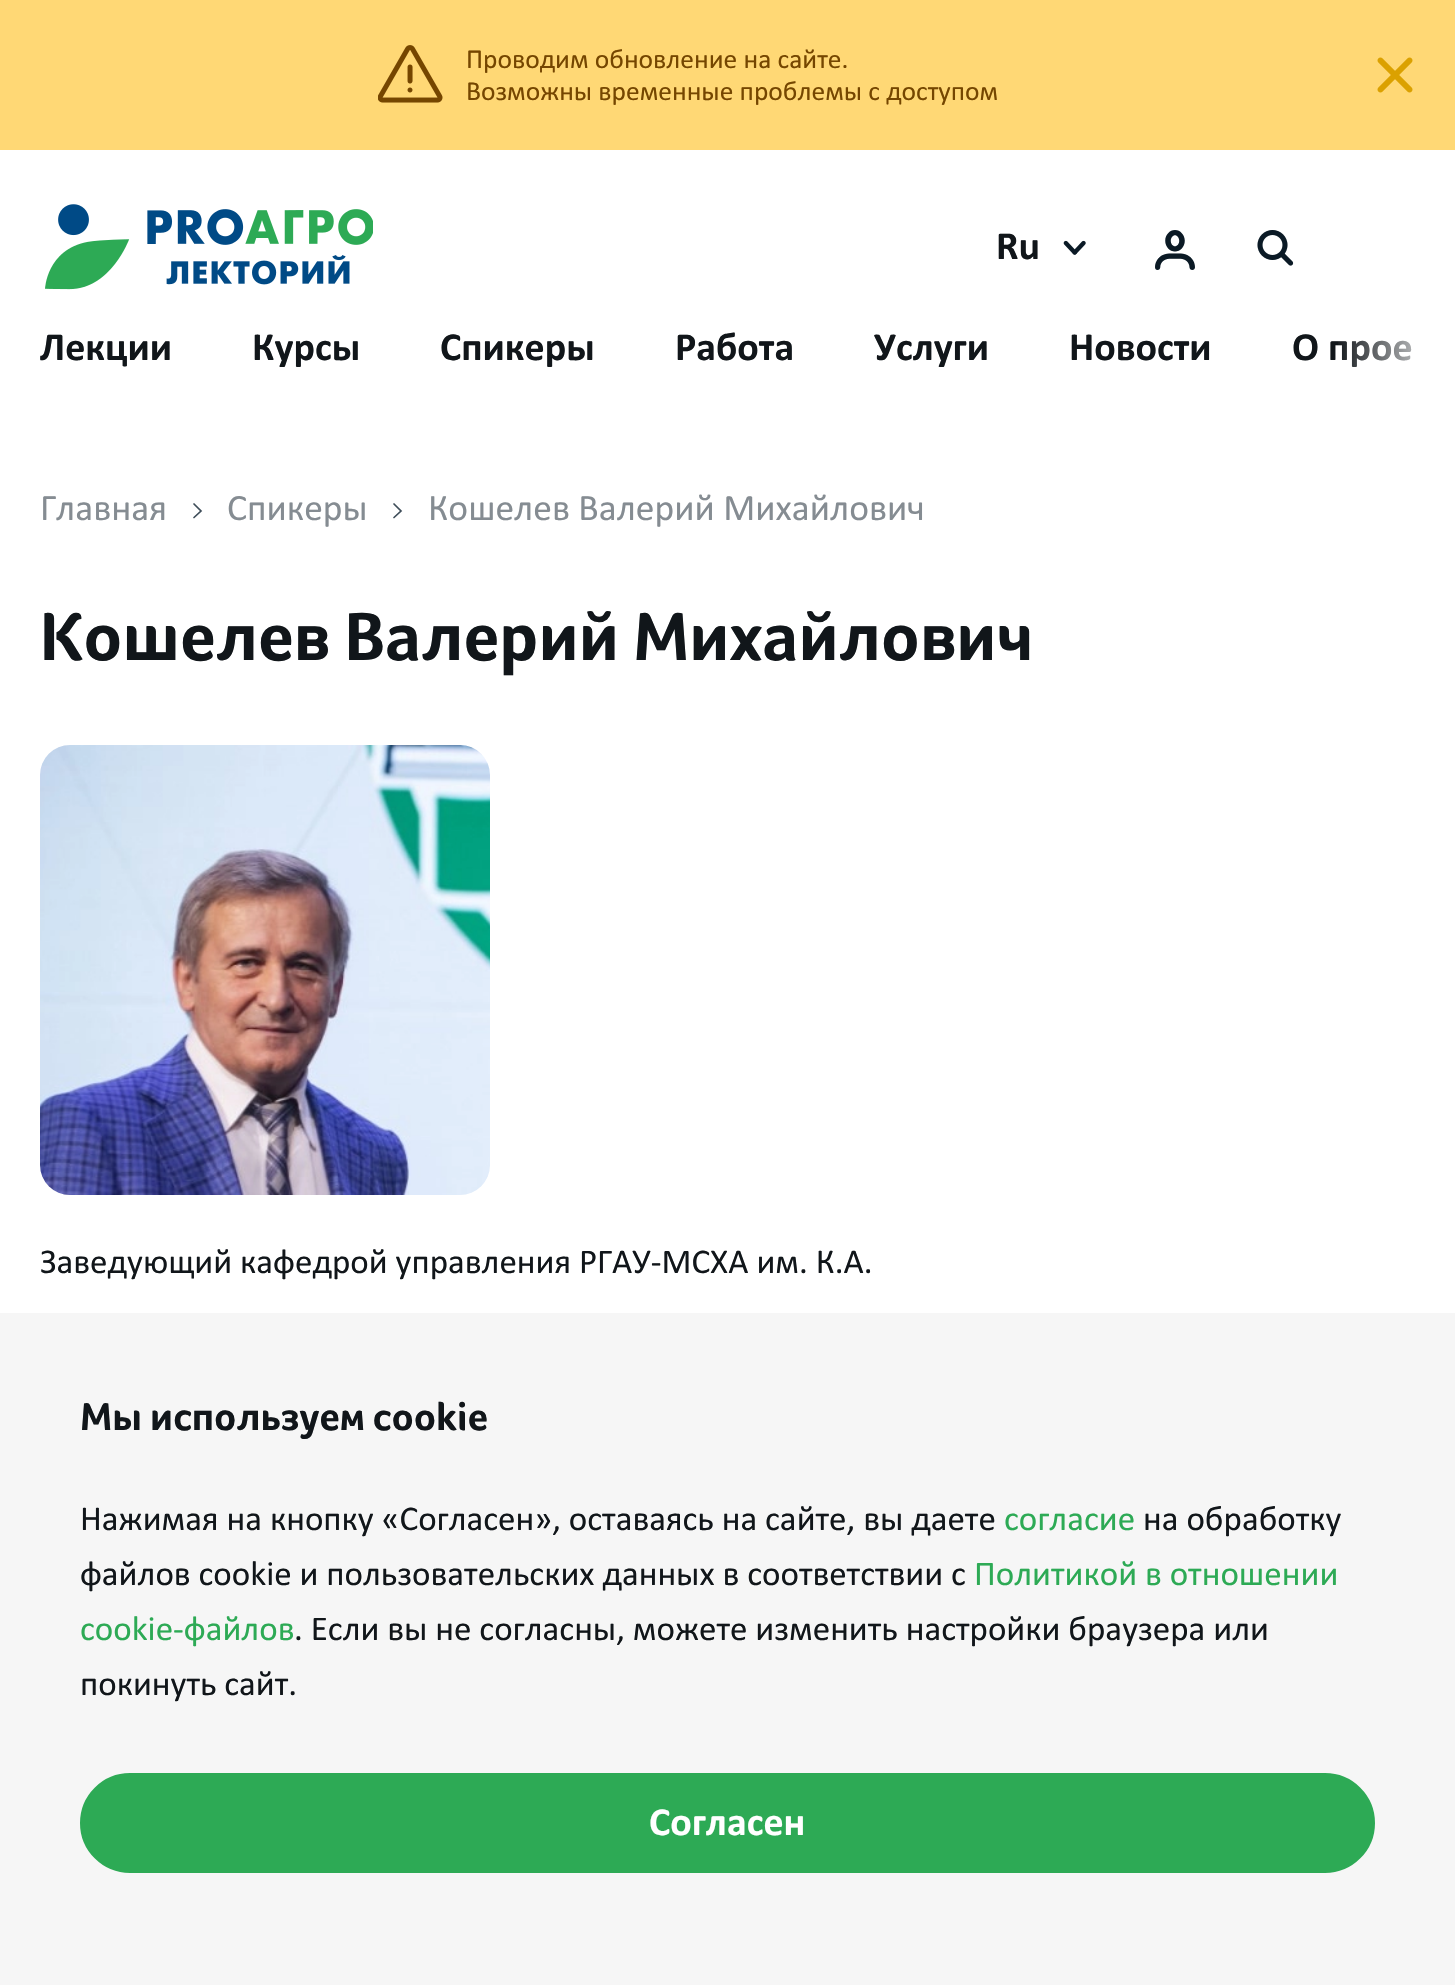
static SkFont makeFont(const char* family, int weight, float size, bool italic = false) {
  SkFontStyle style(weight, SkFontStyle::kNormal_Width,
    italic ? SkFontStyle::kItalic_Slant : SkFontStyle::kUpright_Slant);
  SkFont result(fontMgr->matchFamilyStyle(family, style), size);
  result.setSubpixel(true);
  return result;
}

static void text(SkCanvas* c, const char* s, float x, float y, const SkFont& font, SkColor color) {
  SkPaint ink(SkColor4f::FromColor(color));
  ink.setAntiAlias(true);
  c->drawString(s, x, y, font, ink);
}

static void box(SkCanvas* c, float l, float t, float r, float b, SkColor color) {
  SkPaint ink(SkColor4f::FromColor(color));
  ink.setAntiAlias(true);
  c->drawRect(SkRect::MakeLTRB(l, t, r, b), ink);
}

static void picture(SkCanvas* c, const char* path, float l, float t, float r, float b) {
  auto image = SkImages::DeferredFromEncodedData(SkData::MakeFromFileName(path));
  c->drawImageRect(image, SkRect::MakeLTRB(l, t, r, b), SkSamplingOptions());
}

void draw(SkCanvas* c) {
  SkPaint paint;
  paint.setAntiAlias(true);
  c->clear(0xffffffff);
  box(c, 0, 0, 1455, 150, 0xffffd875);
  picture(c, "img_01.png", 378, 45, 443, 103);
  SkFont face1 = makeFont("Calibri", 400, 27.5f);
  text(c, "Проводим обновление на сайте.", 466, 68, face1, 0xff754600);
  text(c, "Возможны временные проблемы с доступом", 466, 100, face1, 0xff754600);
  picture(c, "img_02.png", 1377, 57, 1413, 93);
  picture(c, "img_03.png", 45, 204, 373, 290);
  SkFont face2 = makeFont("Calibri", 700, 40);
  text(c, "Ru", 996, 259, face2, 0xff11161a);
  picture(c, "img_04.png", 1063, 240, 1086, 255);
  picture(c, "img_05.png", 1155, 230, 1195, 270);
  picture(c, "img_06.png", 1257, 230, 1294, 266);
  text(c, "Лекции", 40, 360, face2, 0xff11161a);
  text(c, "Курсы", 252, 360, face2, 0xff11161a);
  text(c, "Спикеры", 440, 360, face2, 0xff11161a);
  text(c, "Работа", 675, 360, face2, 0xff11161a);
  text(c, "Услуги", 874, 360, face2, 0xff11161a);
  text(c, "Новости", 1069, 360, face2, 0xff11161a);
  text(c, "О прое", 1292, 360, face2, 0xff11161a);
  {
    const SkColor colors[] = {0x00ffffff, 0xffffffff};
    const float stops[] = {0, 1};
    const SkPoint ends[] = {{1335, 334}, {1455, 334}};
    paint.setShader(SkGradientShader::MakeLinear(ends, colors, stops, 2, SkTileMode::kClamp));
    paint.setAlpha(255);
  }
  c->drawRect(SkRect::MakeLTRB(1338, 340, 1411, 367), paint);
  SkFont face3 = makeFont("Calibri", 400, 37.5f);
  text(c, "Главная", 40, 520, face3, 0xff858c92);
  paint.setStyle(SkPaint::kStroke_Style);
  paint.setStrokeWidth(1.7f);
  paint.setStrokeCap(SkPaint::kRound_Cap);
  paint.setShader(nullptr);
  paint.setColor(0xff3e4d59);
  c->drawPath(SkPathBuilder().moveTo(194, 517.5f).lineTo(201, 511).lineTo(194, 504).detach(), paint);
  text(c, "Спикеры", 227, 520, face3, 0xff858c92);
  c->drawPath(SkPathBuilder().moveTo(394, 517.5f).lineTo(401, 511).lineTo(394, 504).detach(), paint);
  text(c, "Кошелев Валерий Михайлович", 428, 520, face3, 0xff858c92);
  SkFont face4 = makeFont("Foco", 700, 70);
  text(c, "Кошелев Валерий Михайлович", 40, 660, face4, 0xff11161a);
  picture(c, "img_07.png", 40, 745, 490, 1195);
  SkFont face5 = makeFont("Calibri", 400, 35);
  text(c, "Заведующий кафедрой управления РГАУ-МСХА им. К.А.", 40, 1273, face5, 0xff11161a);
  box(c, 0, 1313, 1455, 1985, 0xfff6f6f6);
  SkFont face6 = makeFont("Foco", 700, 40);
  text(c, "Мы используем cookie", 80, 1430, face6, 0xff11161a);
  text(c, "Нажимая на кнопку «Согласен», оставаясь на сайте, вы даете", 80, 1530, face5, 0xff11161a);
  text(c, "согласие", 1004, 1530, face5, 0xff2daa55);
  text(c, "на обработку", 1143, 1530, face5, 0xff11161a);
  text(c, "файлов cookie и пользовательских данных в соответствии с", 80, 1585, face5, 0xff11161a);
  text(c, "Политикой в отношении", 974, 1585, face5, 0xff2daa55);
  text(c, "cookie-файлов", 80, 1640, face5, 0xff2daa55);
  text(c, ". Если вы не согласны, можете изменить настройки браузера или", 294, 1640, face5, 0xff11161a);
  text(c, "покинуть сайт.", 80, 1695, face5, 0xff11161a);
  paint.setStyle(SkPaint::kFill_Style);
  paint.setColor(0xff2daa55);
  c->drawRoundRect(SkRect::MakeLTRB(81.5f, 1774.5f, 1373.5f, 1871.5f), 48.5f, 48.5f, paint);
  paint.setStyle(SkPaint::kStroke_Style);
  paint.setStrokeWidth(3);
  paint.setStrokeCap(SkPaint::kButt_Cap);
  c->drawRoundRect(SkRect::MakeLTRB(81.5f, 1774.5f, 1373.5f, 1871.5f), 48.5f, 48.5f, paint);
  text(c, "Согласен", 649, 1835, face2, 0xffffffff);
}
